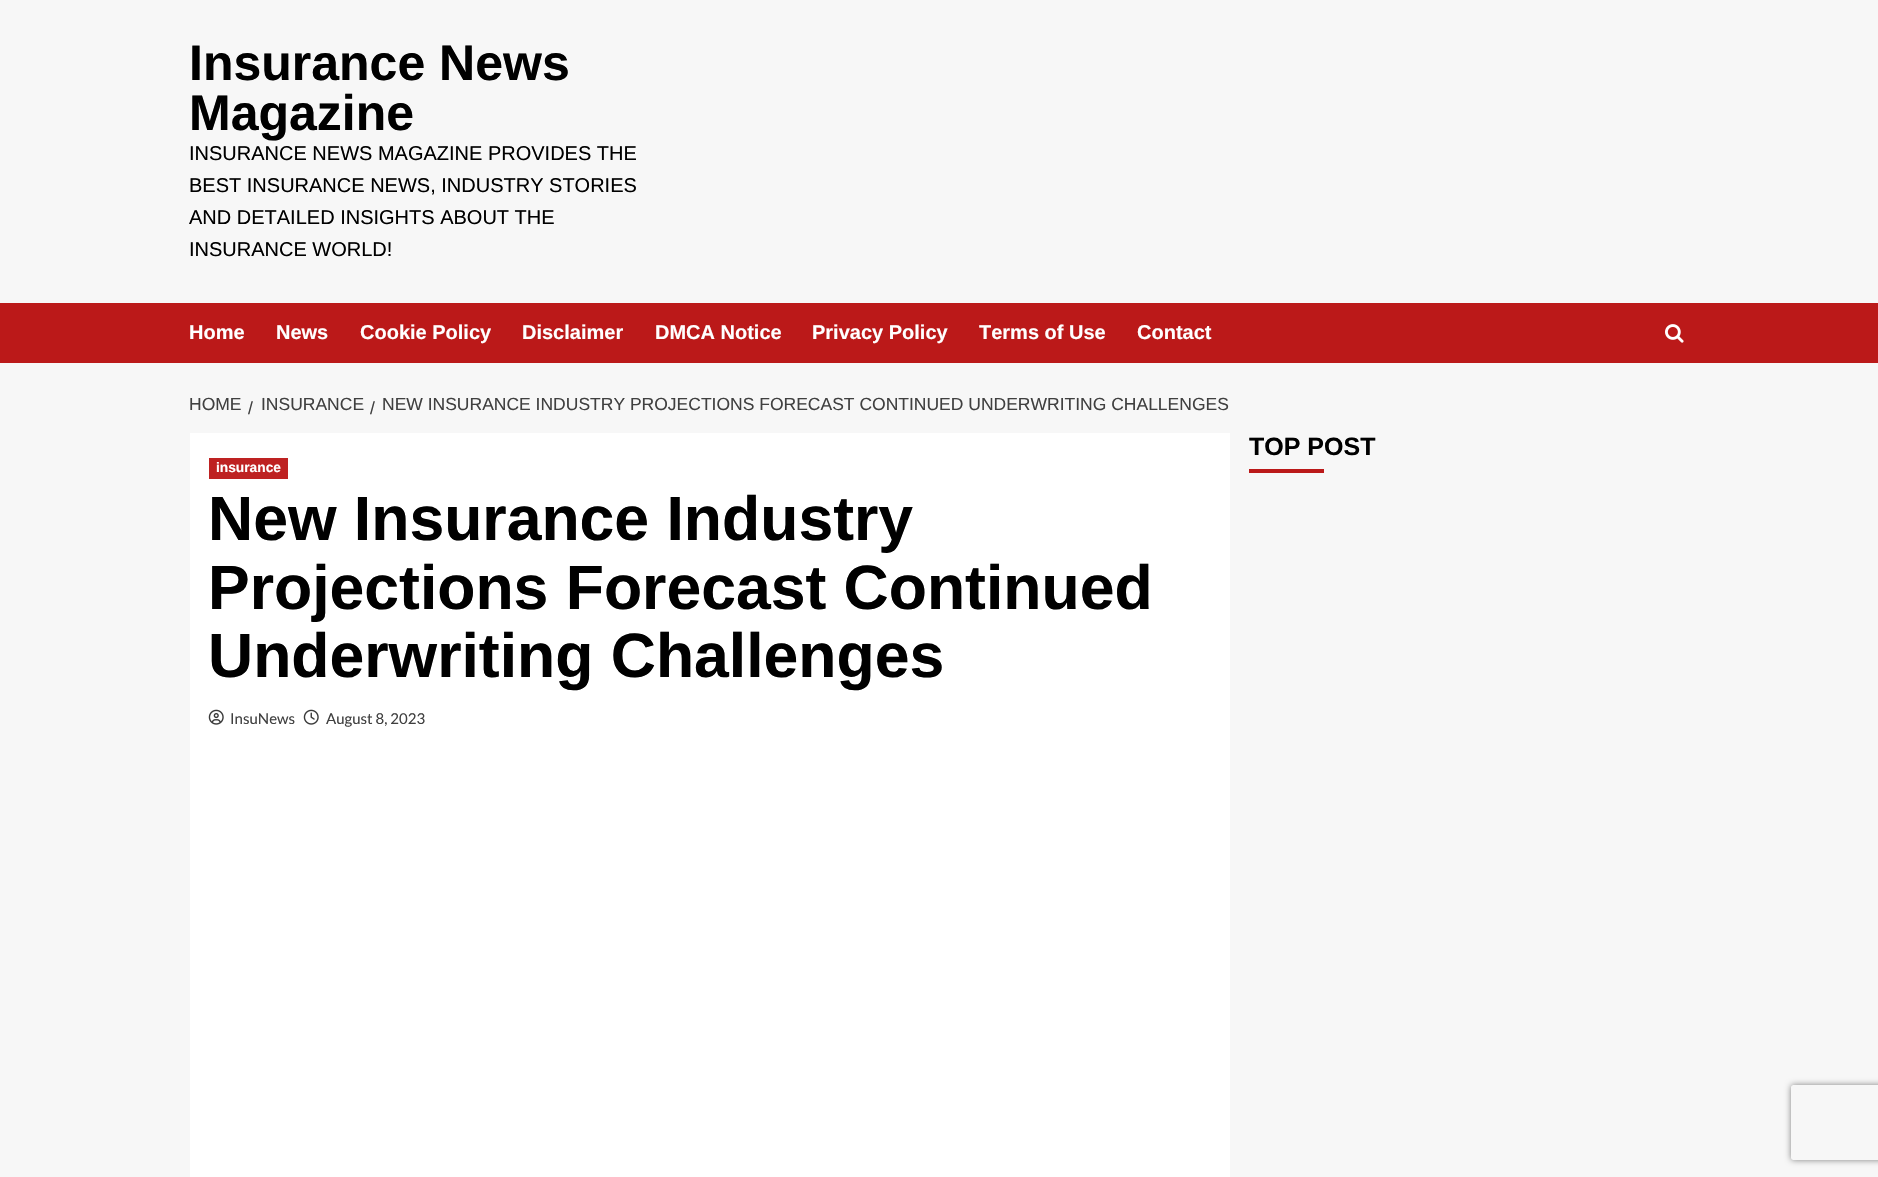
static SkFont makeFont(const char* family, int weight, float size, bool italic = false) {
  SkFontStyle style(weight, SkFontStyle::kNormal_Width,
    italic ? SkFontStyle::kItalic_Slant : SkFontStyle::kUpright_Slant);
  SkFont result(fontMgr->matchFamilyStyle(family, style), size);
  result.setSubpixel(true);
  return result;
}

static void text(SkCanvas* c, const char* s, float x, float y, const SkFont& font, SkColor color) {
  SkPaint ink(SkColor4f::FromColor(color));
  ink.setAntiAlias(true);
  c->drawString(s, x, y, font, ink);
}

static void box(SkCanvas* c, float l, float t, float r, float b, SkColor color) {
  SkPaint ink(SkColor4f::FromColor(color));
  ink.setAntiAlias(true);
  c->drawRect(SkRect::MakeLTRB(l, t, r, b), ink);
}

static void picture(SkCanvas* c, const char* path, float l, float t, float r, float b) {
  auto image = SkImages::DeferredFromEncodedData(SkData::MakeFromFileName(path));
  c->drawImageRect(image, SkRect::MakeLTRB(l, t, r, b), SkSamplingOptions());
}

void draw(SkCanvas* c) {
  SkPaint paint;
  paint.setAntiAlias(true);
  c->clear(0xfff7f7f7);
  SkFont face1 = makeFont("Liberation Sans", 700, 50);
  text(c, "Insurance News", 189, 80, face1, 0xff000000);
  text(c, "Magazine", 189, 130, face1, 0xff000000);
  SkFont face2 = makeFont("Liberation Sans", 400, 20);
  text(c, "INSURANCE NEWS MAGAZINE PROVIDES THE", 189, 160, face2, 0xff000000);
  text(c, "BEST INSURANCE NEWS, INDUSTRY STORIES", 189, 192, face2, 0xff000000);
  text(c, "AND DETAILED INSIGHTS ABOUT THE", 189, 224, face2, 0xff000000);
  text(c, "INSURANCE WORLD!", 189, 256, face2, 0xff000000);
  box(c, 0, 303, 1878, 363, 0xffbb1919);
  SkFont face3 = makeFont("Liberation Sans", 700, 20);
  text(c, "Home", 189, 339, face3, 0xffffffff);
  text(c, "News", 276, 339, face3, 0xffffffff);
  text(c, "Cookie Policy", 360, 339, face3, 0xffffffff);
  text(c, "Disclaimer", 522, 339, face3, 0xffffffff);
  text(c, "DMCA Notice", 655, 339, face3, 0xffffffff);
  text(c, "Privacy Policy", 812, 339, face3, 0xffffffff);
  text(c, "Terms of Use", 979, 339, face3, 0xffffffff);
  text(c, "Contact", 1137, 339, face3, 0xffffffff);
  picture(c, "img_01.png", 1665, 324, 1684, 343);
  SkFont face4 = makeFont("Liberation Sans", 400, 17.5f);
  text(c, "HOME", 189, 410, face4, 0xff404040);
  text(c, "/", 248, 414, face4, 0xff404040);
  text(c, "INSURANCE", 261, 410, face4, 0xff404040);
  text(c, "/", 370, 414, face4, 0xff404040);
  text(c, "NEW INSURANCE INDUSTRY PROJECTIONS FORECAST CONTINUED UNDERWRITING CHALLENGES", 382, 410, face4, 0xff404040);
  SkFont face5 = makeFont("Liberation Sans", 700, 25);
  text(c, "TOP POST", 1249, 455, face5, 0xff000000);
  box(c, 1249, 469, 1324, 473, 0xffbb1919);
  box(c, 190, 433, 1230, 1177, 0xffffffff);
  box(c, 209, 458, 288, 479, 0xffbe2222);
  SkFont face6 = makeFont("Liberation Sans", 700, 13.75f);
  text(c, "insurance", 216, 472, face6, 0xffffffff);
  SkFont face7 = makeFont("Liberation Sans", 700, 62.5f);
  text(c, "New Insurance Industry", 208, 540, face7, 0xff000000);
  text(c, "Projections Forecast Continued", 208, 609, face7, 0xff000000);
  text(c, "Underwriting Challenges", 208, 677, face7, 0xff000000);
  picture(c, "img_02.png", 208, 709, 224, 725);
  SkFont face8 = makeFont("Lato", 400, 15);
  text(c, "InsuNews", 230, 724, face8, 0xff404040);
  picture(c, "img_03.png", 303, 709, 319, 725);
  text(c, "August 8, 2023", 326, 724, face8, 0xff404040);
  c->save();
  c->clipPath(SkPathBuilder(SkPathFillType::kEvenOdd).moveTo(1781, 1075).lineTo(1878, 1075).lineTo(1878, 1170).lineTo(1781, 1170).close().moveTo(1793.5f, 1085).lineTo(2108.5f, 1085).cubicTo(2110, 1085, 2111, 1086, 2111, 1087.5f).lineTo(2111, 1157.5f).cubicTo(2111, 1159, 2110, 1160, 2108.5f, 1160).lineTo(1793.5f, 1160).cubicTo(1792, 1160, 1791, 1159, 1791, 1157.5f).lineTo(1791, 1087.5f).cubicTo(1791, 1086, 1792, 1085, 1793.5f, 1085).close().detach(), true);
  paint.setColor(0xff808080);
  paint.setMaskFilter(SkMaskFilter::MakeBlur(kNormal_SkBlurStyle, 3));
  c->drawRoundRect(SkRect::MakeLTRB(1791, 1085, 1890, 1160), 2.5f, 2.5f, paint);
  paint.setMaskFilter(nullptr);
  c->restore();
}
